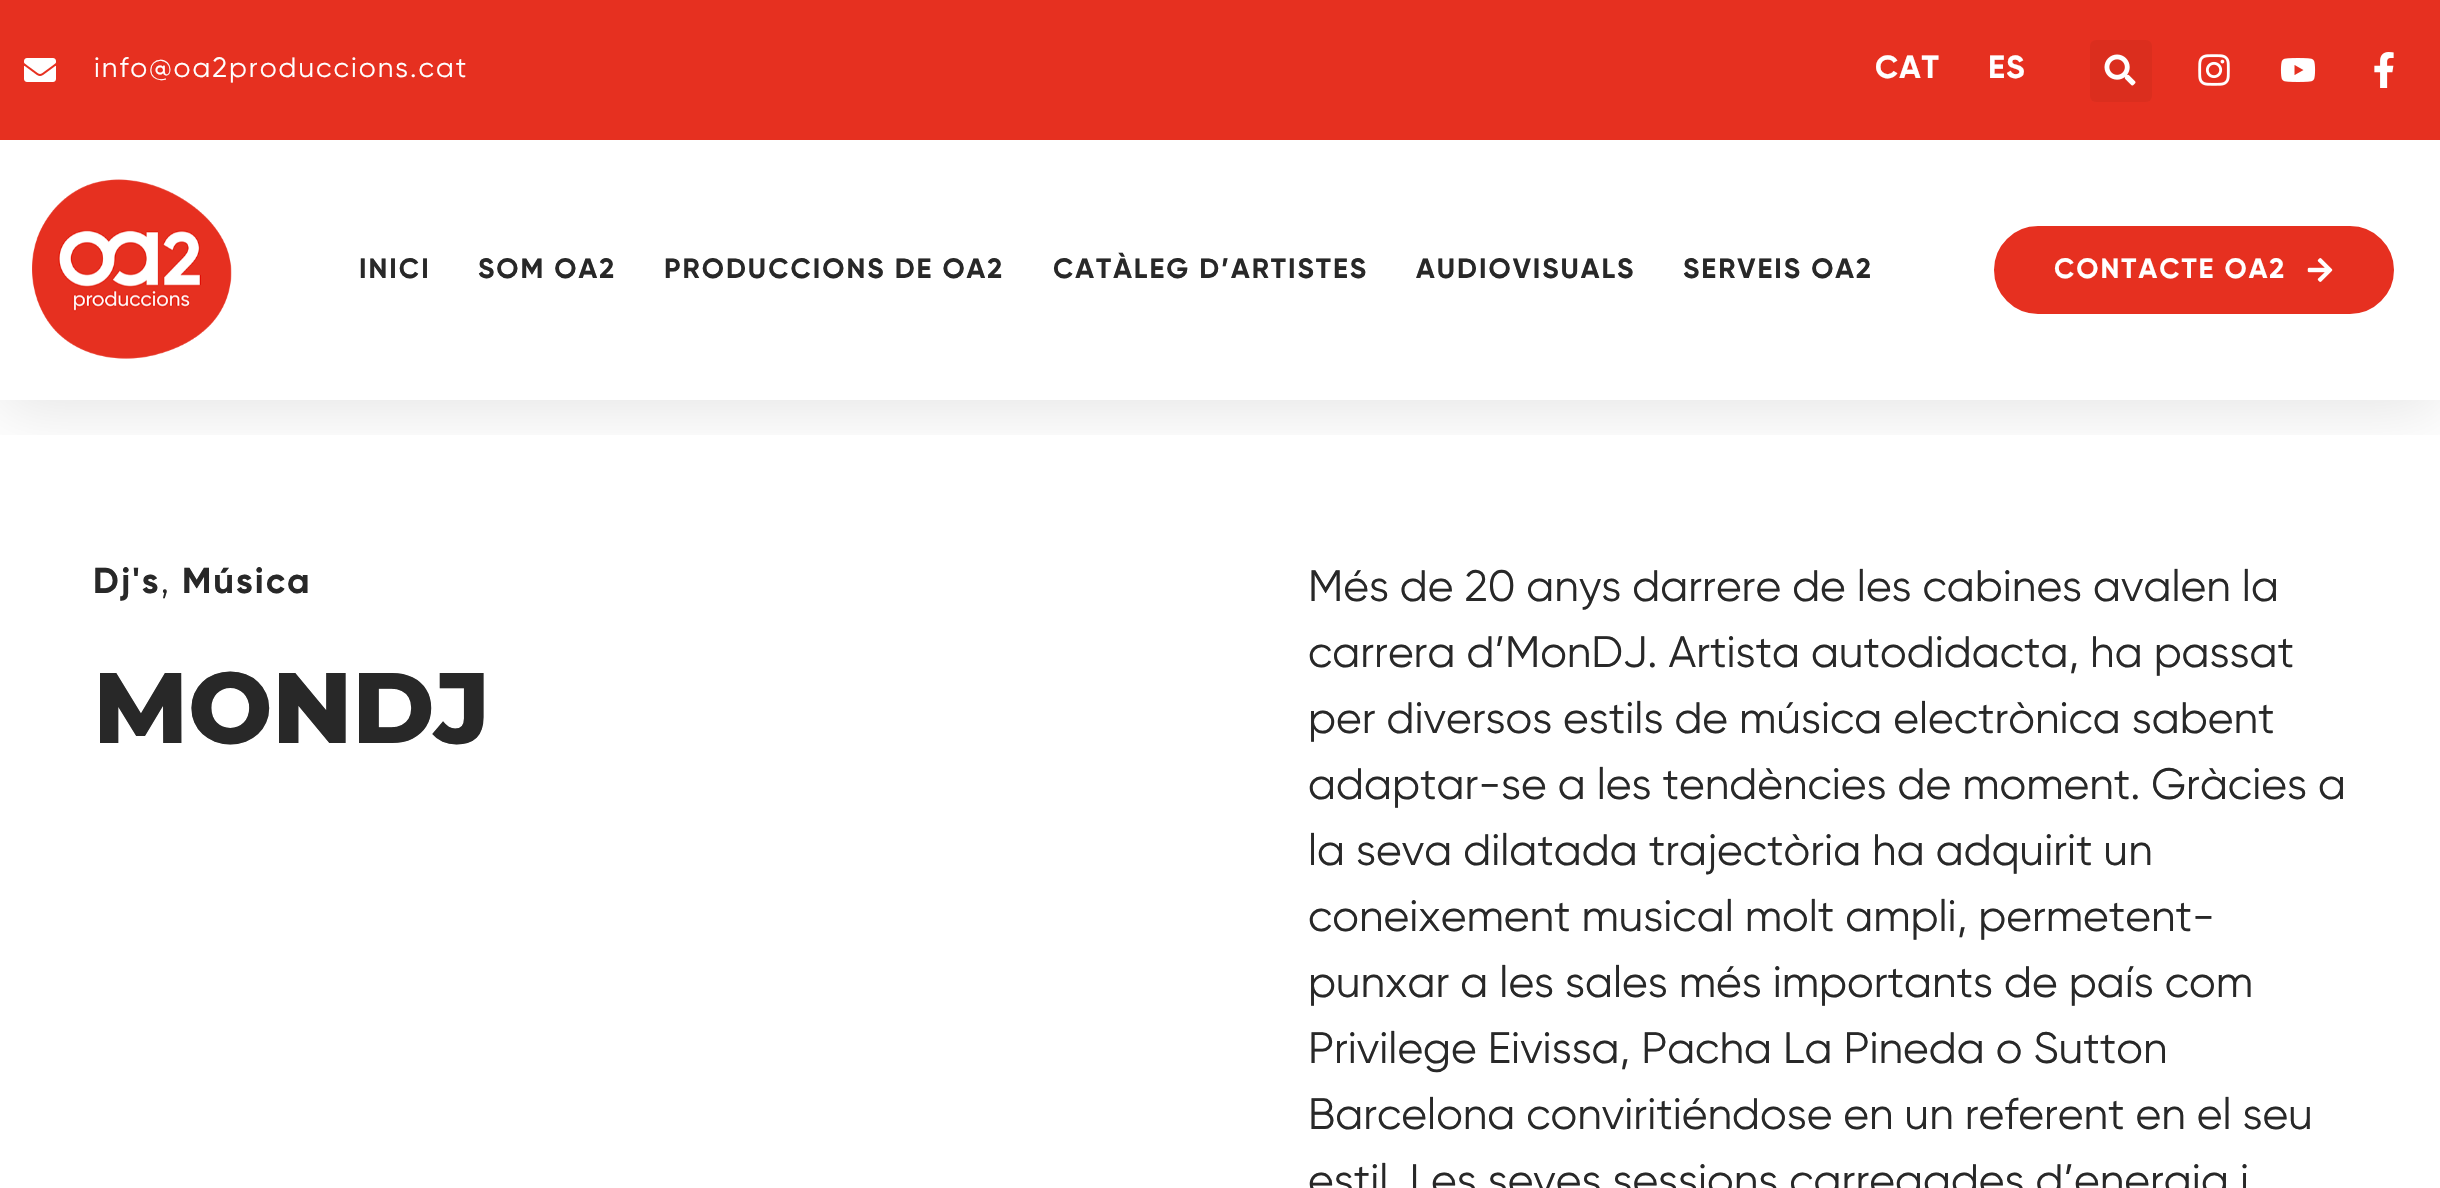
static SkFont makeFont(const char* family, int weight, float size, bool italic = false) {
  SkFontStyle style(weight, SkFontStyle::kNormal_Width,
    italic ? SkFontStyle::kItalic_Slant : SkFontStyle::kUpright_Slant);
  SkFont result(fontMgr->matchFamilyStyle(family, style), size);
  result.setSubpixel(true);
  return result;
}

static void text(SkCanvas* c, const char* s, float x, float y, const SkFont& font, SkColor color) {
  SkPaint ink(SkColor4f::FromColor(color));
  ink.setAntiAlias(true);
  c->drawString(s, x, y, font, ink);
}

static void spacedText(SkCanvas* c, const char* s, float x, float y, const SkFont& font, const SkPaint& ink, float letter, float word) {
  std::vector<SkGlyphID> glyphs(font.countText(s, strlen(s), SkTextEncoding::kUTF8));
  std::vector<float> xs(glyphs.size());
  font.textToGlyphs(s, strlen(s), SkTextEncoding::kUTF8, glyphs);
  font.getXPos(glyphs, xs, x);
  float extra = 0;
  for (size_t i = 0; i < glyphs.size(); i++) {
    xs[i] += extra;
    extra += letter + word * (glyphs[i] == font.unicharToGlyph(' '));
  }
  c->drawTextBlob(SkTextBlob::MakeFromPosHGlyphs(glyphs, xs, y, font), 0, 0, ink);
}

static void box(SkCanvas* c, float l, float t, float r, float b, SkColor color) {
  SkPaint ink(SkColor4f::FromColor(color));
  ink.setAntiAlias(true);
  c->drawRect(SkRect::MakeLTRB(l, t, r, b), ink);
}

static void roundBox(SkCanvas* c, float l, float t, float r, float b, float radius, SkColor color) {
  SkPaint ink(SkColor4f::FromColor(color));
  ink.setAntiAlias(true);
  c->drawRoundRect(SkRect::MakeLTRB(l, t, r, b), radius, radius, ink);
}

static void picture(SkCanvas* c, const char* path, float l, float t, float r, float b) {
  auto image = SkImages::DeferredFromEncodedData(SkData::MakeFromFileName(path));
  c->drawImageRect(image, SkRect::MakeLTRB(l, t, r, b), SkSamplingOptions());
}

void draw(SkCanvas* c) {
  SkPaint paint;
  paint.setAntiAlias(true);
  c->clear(0xffffffff);
  c->save();
  c->clipRect(SkRect::MakeLTRB(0, 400, 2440, 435));
  paint.setColor(0x1a000000);
  paint.setMaskFilter(SkMaskFilter::MakeBlur(kNormal_SkBlurStyle, 30));
  c->drawRect(SkRect::MakeLTRB(0, 10, 2440, 410), paint);
  paint.setMaskFilter(nullptr);
  c->restore();
  box(c, 0, 0, 2440, 140, 0xffe63020);
  picture(c, "img_01.png", 24, 58, 56, 82);
  SkFont face1 = makeFont("Gilroy", 400, 28);
  paint.setColor(0xffffffff);
  spacedText(c, "info@oa2produccions.cat", 94, 77, face1, paint, 2, 0);
  SkFont face2 = makeFont("Gilroy", 700, 32);
  spacedText(c, "CAT", 1875, 78, face2, paint, 1, 0);
  spacedText(c, "ES", 1988, 78, face2, paint, 1, 0);
  roundBox(c, 2090, 40, 2152, 102, 6, 0xffdb2e1e);
  picture(c, "img_02.png", 2104, 54, 2136, 86);
  picture(c, "img_03.png", 2198, 54, 2230, 86);
  picture(c, "img_04.png", 2280, 58, 2316, 82);
  picture(c, "img_05.png", 2374, 52, 2394, 88);
  picture(c, "img_06.png", 32, 179, 232, 359);
  SkFont face3 = makeFont("Gilroy", 700, 28);
  paint.setColor(0xff282828);
  spacedText(c, "INICI", 359, 278, face3, paint, 2, 0);
  spacedText(c, "SOM OA2", 478, 278, face3, paint, 2, 0);
  spacedText(c, "PRODUCCIONS DE OA2", 664, 278, face3, paint, 2, 0);
  spacedText(c, "CATÀLEG D’ARTISTES", 1053, 278, face3, paint, 2, 0);
  spacedText(c, "AUDIOVISUALS", 1416, 278, face3, paint, 2, 0);
  spacedText(c, "SERVEIS OA2", 1683, 278, face3, paint, 2, 0);
  paint.setColor(0xffe63020);
  c->drawRoundRect(SkRect::MakeLTRB(1993, 225, 2395, 315), 45, 45, paint);
  paint.setStyle(SkPaint::kStroke_Style);
  paint.setStrokeWidth(2);
  paint.setColor(0xffffffff);
  c->drawRoundRect(SkRect::MakeLTRB(1993, 225, 2395, 315), 45, 45, paint);
  paint.setStyle(SkPaint::kFill_Style);
  spacedText(c, "CONTACTE OA2", 2054, 278, face3, paint, 2, 0);
  picture(c, "img_07.png", 2307, 258, 2333, 282);
  SkFont face4 = makeFont("Gilroy", 700, 36);
  paint.setColor(0xff282828);
  spacedText(c, "Dj's", 93, 593, face4, paint, 2, 0);
  SkFont face5 = makeFont("Montserrat", 400, 36);
  spacedText(c, ",", 161, 593, face5, paint, 2, 0);
  spacedText(c, "Música", 182, 593, face4, paint, 2, 0);
  SkFont face6 = makeFont("Montserrat", 800, 100);
  spacedText(c, "MONDJ", 93, 743, face6, paint, -0.5f, 0);
  SkFont face7 = makeFont("Gilroy", 400, 44);
  text(c, "Més de 20 anys darrere de les cabines avalen la", 1308, 601, face7, 0xff282828);
  text(c, "carrera d’MonDJ. Artista autodidacta, ha passat", 1308, 667, face7, 0xff282828);
  text(c, "per diversos estils de música electrònica sabent", 1308, 733, face7, 0xff282828);
  text(c, "adaptar-se a les tendències de moment. Gràcies a", 1308, 799, face7, 0xff282828);
  text(c, "la seva dilatada trajectòria ha adquirit un", 1308, 865, face7, 0xff282828);
  text(c, "coneixement musical molt ampli, permetent-", 1308, 931, face7, 0xff282828);
  text(c, "punxar a les sales més importants de país com", 1308, 997, face7, 0xff282828);
  text(c, "Privilege Eivissa, Pacha La Pineda o Sutton", 1308, 1063, face7, 0xff282828);
  text(c, "Barcelona conviritiéndose en un referent en el seu", 1308, 1129, face7, 0xff282828);
  text(c, "estil. Les seves sessions carregades d’energia i", 1308, 1195, face7, 0xff282828);
}
